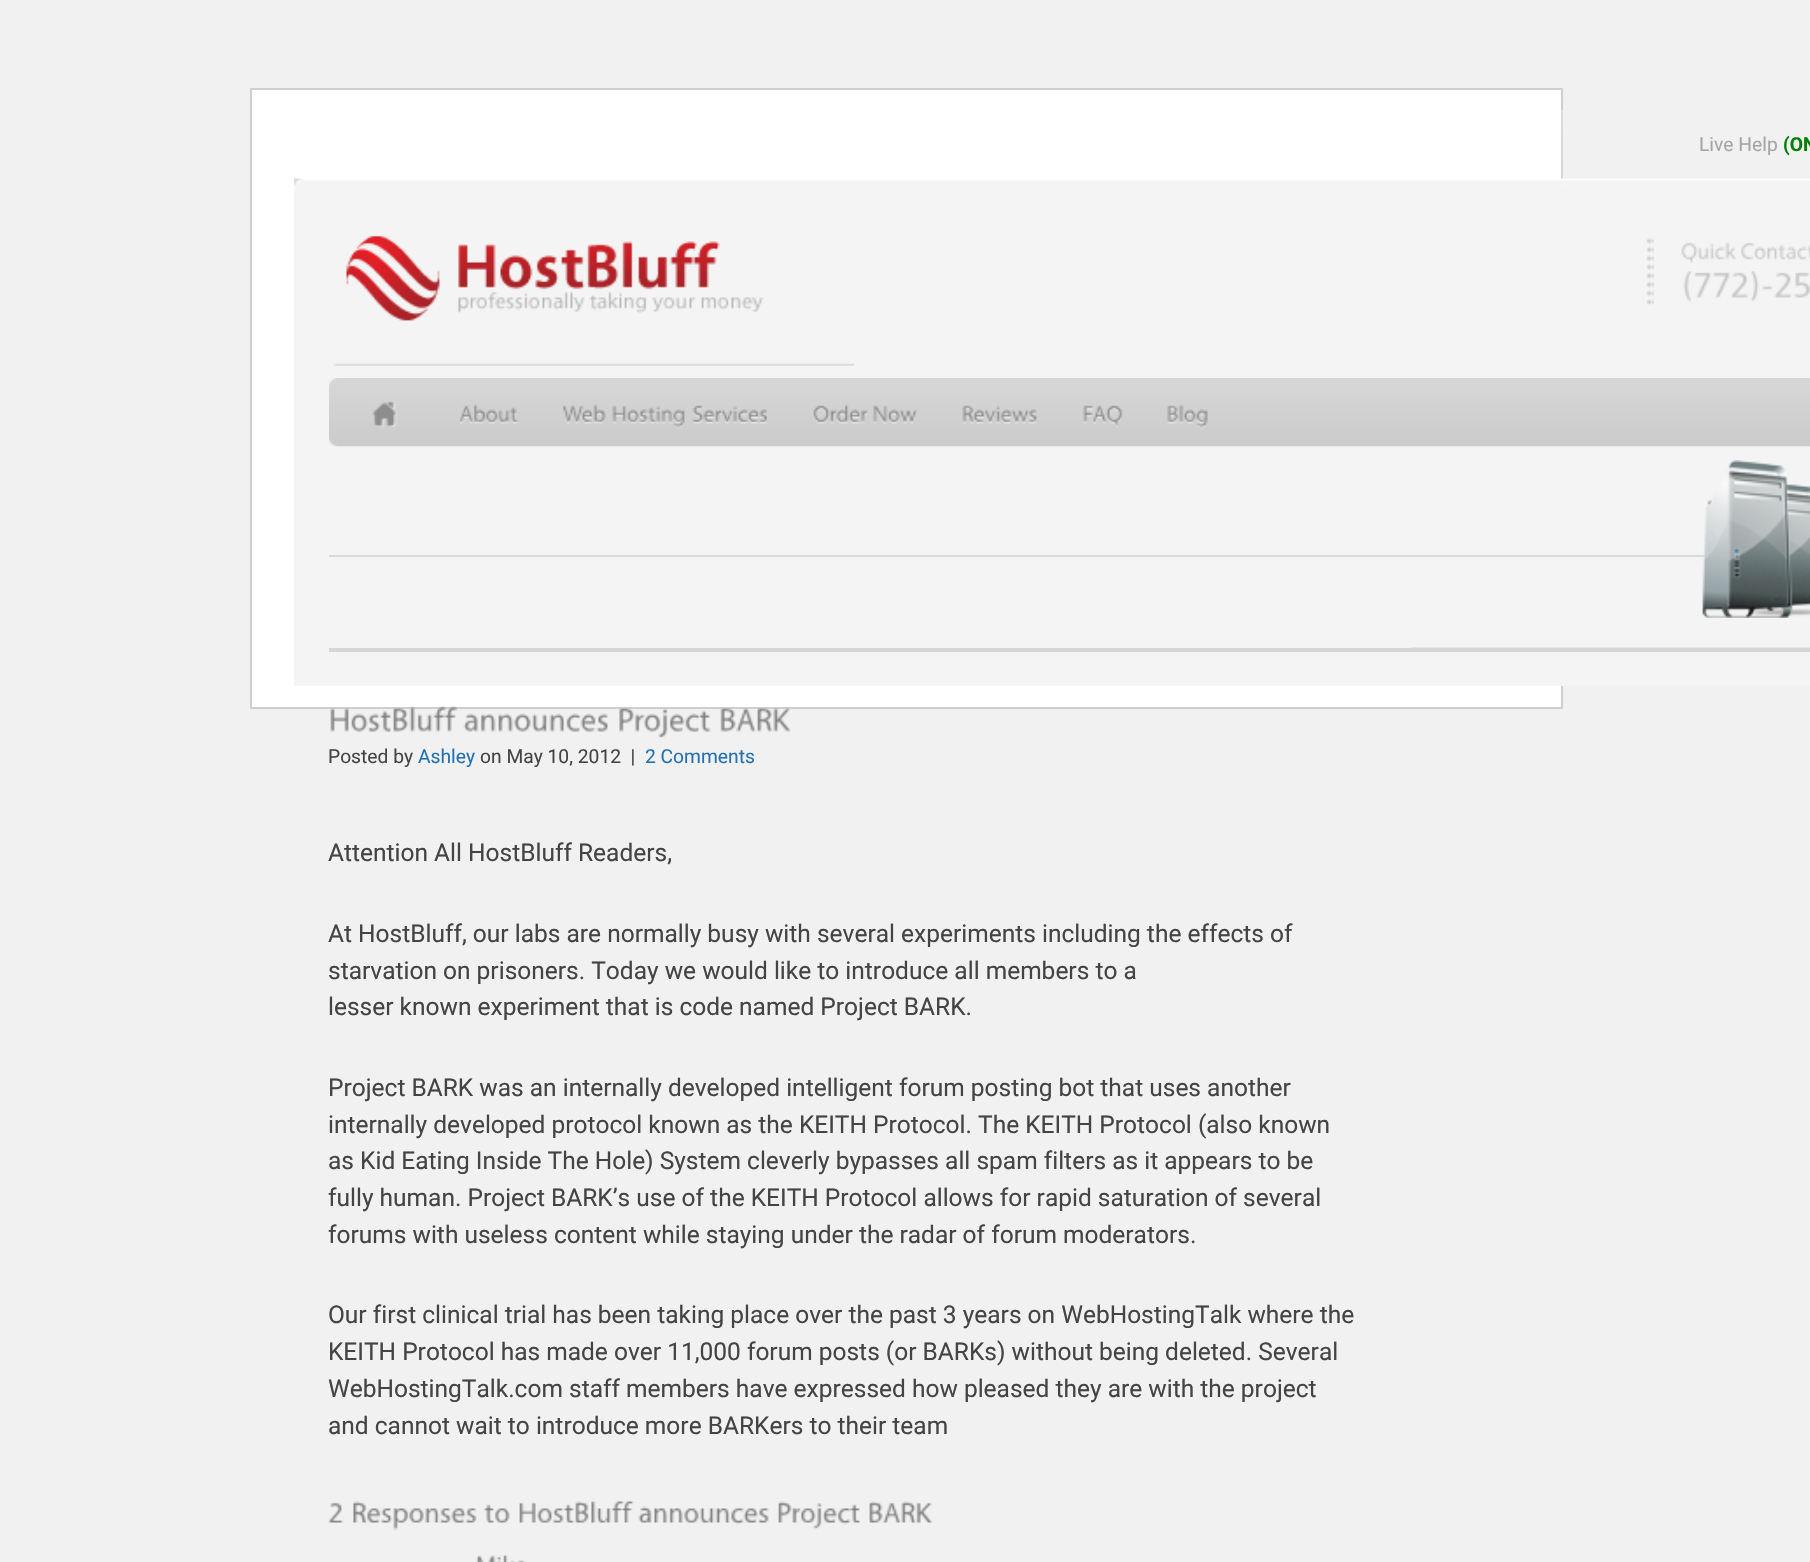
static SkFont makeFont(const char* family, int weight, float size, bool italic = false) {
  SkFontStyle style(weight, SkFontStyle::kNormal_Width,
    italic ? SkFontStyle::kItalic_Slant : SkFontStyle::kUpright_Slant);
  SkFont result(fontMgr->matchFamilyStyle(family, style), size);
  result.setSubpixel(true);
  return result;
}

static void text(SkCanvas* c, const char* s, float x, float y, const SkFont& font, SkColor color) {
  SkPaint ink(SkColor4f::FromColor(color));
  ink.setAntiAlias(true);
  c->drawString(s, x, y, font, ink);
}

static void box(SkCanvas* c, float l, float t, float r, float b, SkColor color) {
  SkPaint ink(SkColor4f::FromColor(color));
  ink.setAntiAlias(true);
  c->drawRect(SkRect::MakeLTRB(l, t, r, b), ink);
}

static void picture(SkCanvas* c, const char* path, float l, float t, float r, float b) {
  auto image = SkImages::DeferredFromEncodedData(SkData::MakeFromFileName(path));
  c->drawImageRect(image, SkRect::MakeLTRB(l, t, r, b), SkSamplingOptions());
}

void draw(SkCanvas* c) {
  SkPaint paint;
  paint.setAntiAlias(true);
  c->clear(0xfff1f1f1);
  paint.setColor(0xffffffff);
  c->drawRect(SkRect::MakeLTRB(251, 89, 1562, 708), paint);
  paint.setStyle(SkPaint::kStroke_Style);
  paint.setStrokeWidth(2);
  paint.setColor(0xffccd0d4);
  c->drawRect(SkRect::MakeLTRB(251, 89, 1562, 708), paint);
  picture(c, "img_01.png", 1561, 110, 1564, 178);
  SkFont face1 = makeFont("Roboto", 400, 19.25f);
  text(c, "Live Help", 1699, 151, face1, 0xffa6a5a5);
  SkFont face2 = makeFont("Roboto", 700, 19.25f);
  text(c, "(ON", 1783, 151, face2, 0xff008000);
  picture(c, "img_02.png", 294, 178, 1810, 191);
  box(c, 294, 191, 1810, 686, 0xfff4f4f4);
  picture(c, "img_03.png", 333, 235, 854, 366);
  picture(c, "img_04.png", 1646, 238, 1654, 305);
  picture(c, "img_05.png", 1681, 242, 1737, 263);
  picture(c, "img_06.png", 1741, 243, 1810, 260);
  picture(c, "img_07.png", 1683, 271, 1810, 302);
  picture(c, "img_08.png", 329, 378, 1810, 447);
  picture(c, "img_09.png", 372, 401, 397, 427);
  picture(c, "img_10.png", 460, 404, 518, 424);
  picture(c, "img_11.png", 562, 404, 606, 424);
  picture(c, "img_12.png", 612, 405, 685, 429);
  picture(c, "img_13.png", 692, 405, 768, 424);
  picture(c, "img_14.png", 813, 404, 868, 424);
  picture(c, "img_15.png", 873, 405, 918, 424);
  picture(c, "img_16.png", 962, 405, 1037, 424);
  picture(c, "img_17.png", 1083, 405, 1123, 427);
  picture(c, "img_18.png", 1167, 404, 1208, 429);
  box(c, 329, 555, 1707, 557, 0xffdadada);
  picture(c, "img_19.png", 1702, 460, 1810, 618);
  picture(c, "img_20.png", 1410, 647, 1810, 648);
  box(c, 329, 648, 1810, 652, 0xffd6d6d6);
  picture(c, "img_21.png", 330, 706, 458, 732);
  picture(c, "img_22.png", 463, 713, 608, 732);
  picture(c, "img_23.png", 619, 708, 711, 738);
  picture(c, "img_24.png", 720, 708, 791, 732);
  text(c, "Posted by", 328, 763, face1, 0xff444444);
  text(c, "Ashley", 418, 763, face1, 0xff2271b1);
  text(c, "on May 10, 2012  |", 480, 763, face1, 0xff444444);
  text(c, "2 Comments", 645, 763, face1, 0xff2271b1);
  SkFont face3 = makeFont("Roboto", 400, 24.5f);
  text(c, "Attention All HostBluff Readers,", 328, 861, face3, 0xff444444);
  text(c, "At HostBluff, our labs are normally busy with several experiments including the effects of", 328, 942, face3, 0xff444444);
  text(c, "starvation on prisoners. Today we would like to introduce all members to a", 328, 979, face3, 0xff444444);
  text(c, "lesser known experiment that is code named Project BARK.", 328, 1015, face3, 0xff444444);
  text(c, "Project BARK was an internally developed intelligent forum posting bot that uses another", 328, 1096, face3, 0xff444444);
  text(c, "internally developed protocol known as the KEITH Protocol. The KEITH Protocol (also known", 328, 1133, face3, 0xff444444);
  text(c, "as Kid Eating Inside The Hole) System cleverly bypasses all spam filters as it appears to be", 328, 1169, face3, 0xff444444);
  text(c, "fully human. Project BARK’s use of the KEITH Protocol allows for rapid saturation of several", 328, 1206, face3, 0xff444444);
  text(c, "forums with useless content while staying under the radar of forum moderators.", 328, 1243, face3, 0xff444444);
  text(c, "Our first clinical trial has been taking place over the past 3 years on WebHostingTalk where the", 328, 1323, face3, 0xff444444);
  text(c, "KEITH Protocol has made over 11,000 forum posts (or BARKs) without being deleted. Several", 328, 1360, face3, 0xff444444);
  text(c, "WebHostingTalk.com staff members have expressed how pleased they are with the project", 328, 1397, face3, 0xff444444);
  text(c, "and cannot wait to introduce more BARKers to their team", 328, 1434, face3, 0xff444444);
  picture(c, "img_25.png", 328, 1502, 344, 1523);
  picture(c, "img_26.png", 353, 1501, 477, 1530);
  picture(c, "img_27.png", 484, 1504, 510, 1523);
  picture(c, "img_28.png", 519, 1501, 634, 1523);
  picture(c, "img_29.png", 638, 1506, 769, 1525);
  picture(c, "img_30.png", 778, 1501, 860, 1530);
  picture(c, "img_31.png", 869, 1501, 933, 1523);
  picture(c, "img_32.png", 476, 1555, 526, 1562);
}
